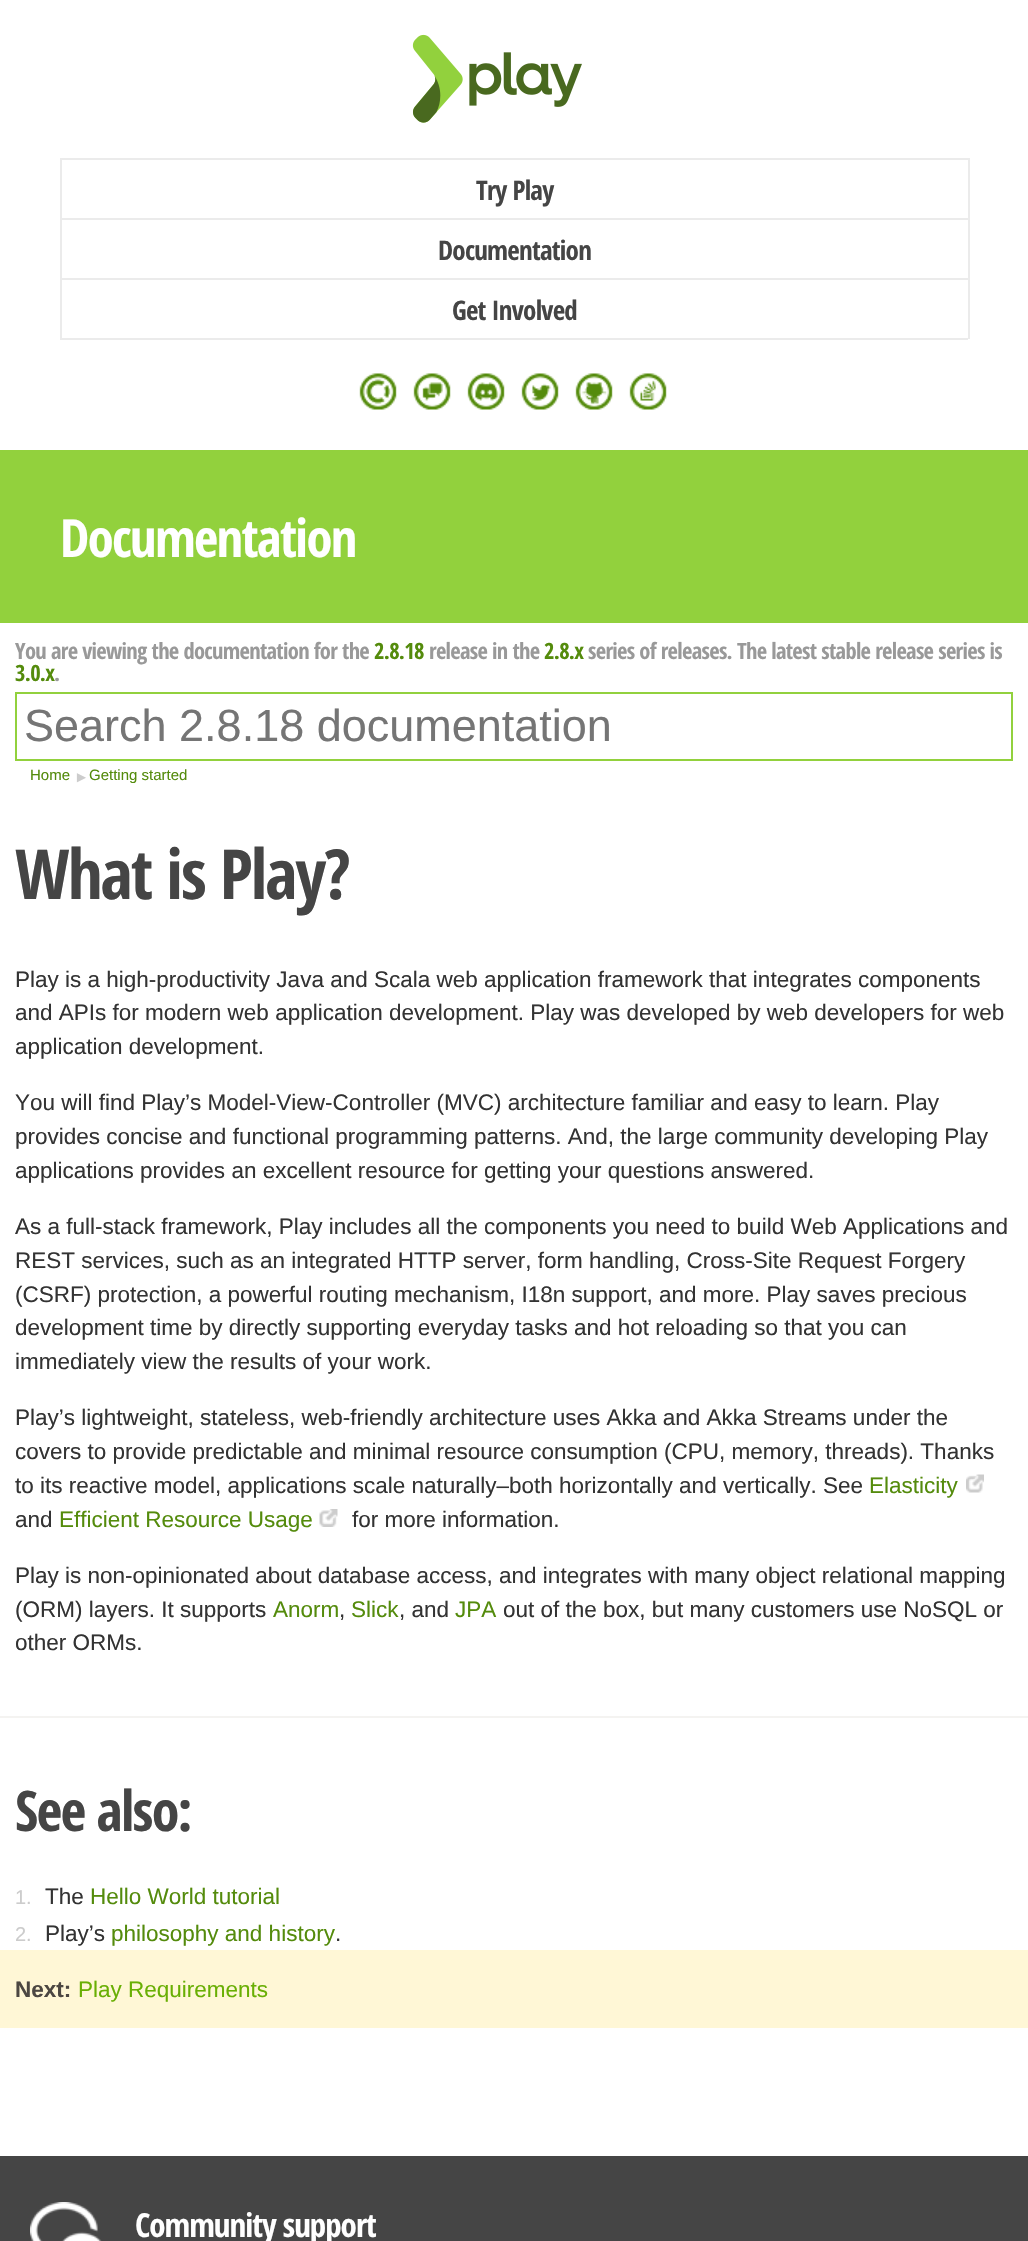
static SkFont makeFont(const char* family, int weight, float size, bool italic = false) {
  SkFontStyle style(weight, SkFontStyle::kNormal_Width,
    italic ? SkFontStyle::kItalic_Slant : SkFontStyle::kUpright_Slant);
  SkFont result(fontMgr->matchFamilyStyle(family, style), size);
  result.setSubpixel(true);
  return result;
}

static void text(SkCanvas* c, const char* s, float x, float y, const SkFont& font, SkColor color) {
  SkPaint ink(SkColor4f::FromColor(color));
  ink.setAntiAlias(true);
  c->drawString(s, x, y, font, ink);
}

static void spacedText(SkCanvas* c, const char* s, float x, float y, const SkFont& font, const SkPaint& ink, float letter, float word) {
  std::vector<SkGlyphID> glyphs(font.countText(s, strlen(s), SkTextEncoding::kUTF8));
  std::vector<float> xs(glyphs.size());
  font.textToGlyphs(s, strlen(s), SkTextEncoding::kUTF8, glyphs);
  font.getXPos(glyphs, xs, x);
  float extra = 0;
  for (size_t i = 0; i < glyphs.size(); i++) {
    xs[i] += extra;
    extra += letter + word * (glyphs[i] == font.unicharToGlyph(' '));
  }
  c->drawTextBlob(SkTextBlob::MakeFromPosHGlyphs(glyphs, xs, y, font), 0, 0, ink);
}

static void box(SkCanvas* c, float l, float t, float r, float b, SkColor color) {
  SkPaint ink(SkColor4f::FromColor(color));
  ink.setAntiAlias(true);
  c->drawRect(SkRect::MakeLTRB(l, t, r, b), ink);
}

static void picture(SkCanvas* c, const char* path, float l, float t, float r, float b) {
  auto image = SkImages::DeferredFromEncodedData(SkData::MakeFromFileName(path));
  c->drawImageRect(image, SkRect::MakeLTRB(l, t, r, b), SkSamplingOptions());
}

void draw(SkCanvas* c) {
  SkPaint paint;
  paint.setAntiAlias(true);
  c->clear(0xffffffff);
  picture(c, "img_01.png", 412, 34, 582, 123);
  box(c, 60, 158, 969, 160, 0xffebebeb);
  box(c, 968, 158, 970, 339, 0xffebebeb);
  box(c, 60, 218, 968, 220, 0xffebebeb);
  box(c, 60, 159, 62, 219, 0xffebebeb);
  SkFont face1 = makeFont("Open Sans Condensed", 700, 27);
  paint.setColor(0xff454545);
  spacedText(c, "Try Play", 476, 200, face1, paint, -0.75f, 0);
  box(c, 60, 278, 968, 280, 0xffebebeb);
  box(c, 60, 219, 62, 279, 0xffebebeb);
  spacedText(c, "Documentation", 438, 260, face1, paint, -0.75f, 0);
  box(c, 60, 338, 968, 340, 0xffebebeb);
  box(c, 60, 279, 62, 339, 0xffebebeb);
  spacedText(c, "Get Involved", 452, 320, face1, paint, -0.75f, 0);
  picture(c, "img_02.png", 359, 373, 397, 410);
  picture(c, "img_03.png", 413, 373, 451, 410);
  picture(c, "img_04.png", 467, 373, 505, 410);
  picture(c, "img_05.png", 521, 373, 559, 410);
  picture(c, "img_06.png", 575, 373, 613, 410);
  picture(c, "img_07.png", 629, 373, 667, 410);
  box(c, 0, 450, 1028, 623, 0xff92d13d);
  SkFont face2 = makeFont("Open Sans Condensed", 700, 52.5f);
  paint.setColor(0xffffffff);
  spacedText(c, "Documentation", 60, 557, face2, paint, -1.6f, 0);
  SkFont face3 = makeFont("Open Sans Condensed", 700, 22.5f);
  paint.setColor(0xff999999);
  spacedText(c, "You are viewing the documentation for the", 15, 659, face3, paint, -0.68f, 0);
  paint.setColor(0xff548b0c);
  spacedText(c, "2.8.18", 374, 659, face3, paint, -0.68f, 0);
  paint.setColor(0xff999999);
  spacedText(c, "release in the", 429, 659, face3, paint, -0.68f, 0);
  paint.setColor(0xff548b0c);
  spacedText(c, "2.8.x", 544, 659, face3, paint, -0.68f, 0);
  paint.setColor(0xff999999);
  spacedText(c, "series of releases. The latest stable release series is", 588, 659, face3, paint, -0.68f, 0);
  paint.setColor(0xff548b0c);
  spacedText(c, "3.0.x", 15, 681, face3, paint, -0.68f, 0);
  paint.setColor(0xff999999);
  spacedText(c, ".", 54, 681, face3, paint, -0.68f, 0);
  paint.setStyle(SkPaint::kStroke_Style);
  paint.setStrokeWidth(2);
  paint.setColor(0xff92d13d);
  c->drawRect(SkRect::MakeLTRB(16, 693, 1012, 760), paint);
  SkFont face4 = makeFont("Liberation Sans", 400, 45);
  text(c, "Search 2.8.18 documentation", 24, 741, face4, 0xff757575);
  SkFont face5 = makeFont("Liberation Sans", 400, 15);
  text(c, "Home", 30, 780, face5, 0xff548b0c);
  text(c, "►", 74, 782, face5, 0xffcccccc);
  text(c, "Getting started", 89, 780, face5, 0xff548b0c);
  SkFont face6 = makeFont("Open Sans Condensed", 700, 69);
  paint.setStyle(SkPaint::kFill_Style);
  paint.setColor(0xff454545);
  spacedText(c, "What is Play?", 15, 899, face6, paint, -2, 0);
  SkFont face7 = makeFont("Liberation Sans", 400, 22.5f);
  text(c, "Play is a high-productivity Java and Scala web application framework that integrates components", 15, 987, face7, 0xff333333);
  text(c, "and APIs for modern web application development. Play was developed by web developers for web", 15, 1020, face7, 0xff333333);
  text(c, "application development.", 15, 1054, face7, 0xff333333);
  text(c, "You will find Play’s Model-View-Controller (MVC) architecture familiar and easy to learn. Play", 15, 1110, face7, 0xff333333);
  text(c, "provides concise and functional programming patterns. And, the large community developing Play", 15, 1144, face7, 0xff333333);
  text(c, "applications provides an excellent resource for getting your questions answered.", 15, 1178, face7, 0xff333333);
  text(c, "As a full-stack framework, Play includes all the components you need to build Web Applications and", 15, 1234, face7, 0xff333333);
  text(c, "REST services, such as an integrated HTTP server, form handling, Cross-Site Request Forgery", 15, 1268, face7, 0xff333333);
  text(c, "(CSRF) protection, a powerful routing mechanism, I18n support, and more. Play saves precious", 15, 1302, face7, 0xff333333);
  text(c, "development time by directly supporting everyday tasks and hot reloading so that you can", 15, 1335, face7, 0xff333333);
  text(c, "immediately view the results of your work.", 15, 1369, face7, 0xff333333);
  text(c, "Play’s lightweight, stateless, web-friendly architecture uses Akka and Akka Streams under the", 15, 1425, face7, 0xff333333);
  text(c, "covers to provide predictable and minimal resource consumption (CPU, memory, threads). Thanks", 15, 1459, face7, 0xff333333);
  text(c, "to its reactive model, applications scale naturally–both horizontally and vertically. See", 15, 1493, face7, 0xff333333);
  text(c, "Elasticity", 869, 1493, face7, 0xff548b0c);
  picture(c, "img_08.png", 966, 1474, 984, 1493);
  text(c, "and", 15, 1527, face7, 0xff333333);
  text(c, "Efficient Resource Usage", 59, 1527, face7, 0xff548b0c);
  picture(c, "img_09.png", 319, 1509, 338, 1527);
  text(c, "for more information.", 352, 1527, face7, 0xff333333);
  text(c, "Play is non-opinionated about database access, and integrates with many object relational mapping", 15, 1583, face7, 0xff333333);
  text(c, "(ORM) layers. It supports", 15, 1617, face7, 0xff333333);
  text(c, "Anorm", 273, 1617, face7, 0xff548b0c);
  text(c, ",", 339, 1617, face7, 0xff333333);
  text(c, "Slick", 351, 1617, face7, 0xff548b0c);
  text(c, ", and", 399, 1617, face7, 0xff333333);
  text(c, "JPA", 455, 1617, face7, 0xff548b0c);
  text(c, "out of the box, but many customers use NoSQL or", 503, 1617, face7, 0xff333333);
  text(c, "other ORMs.", 15, 1650, face7, 0xff333333);
  box(c, 0, 1716, 1028, 1718, 0xfff4f3f1);
  SkFont face8 = makeFont("Open Sans Condensed", 700, 56);
  spacedText(c, "See also:", 15, 1831, face8, paint, -1.75f, 0);
  SkFont face9 = makeFont("Liberation Sans", 400, 20);
  text(c, "1.", 15, 1904, face9, 0xffcccccc);
  text(c, "The", 45, 1904, face7, 0xff333333);
  text(c, "Hello World tutorial", 90, 1904, face7, 0xff548b0c);
  text(c, "2.", 15, 1941, face9, 0xffcccccc);
  text(c, "Play’s", 45, 1941, face7, 0xff333333);
  text(c, "philosophy and history", 111, 1941, face7, 0xff548b0c);
  text(c, ".", 335, 1941, face7, 0xff333333);
  box(c, 0, 1950, 1028, 2028, 0xfffff7d6);
  SkFont face10 = makeFont("Liberation Sans", 700, 22.5f);
  text(c, "Next:", 15, 1997, face10, 0xff4c4742);
  text(c, "Play Requirements", 78, 1997, face7, 0xff69af04);
  box(c, 0, 2156, 1028, 2241, 0xff454545);
  picture(c, "img_10.png", 30, 2202, 102, 2241);
  SkFont face11 = makeFont("Open Sans Condensed", 700, 33);
  paint.setColor(0xffffffff);
  spacedText(c, "Community support", 135, 2237, face11, paint, -1, 0);
}
